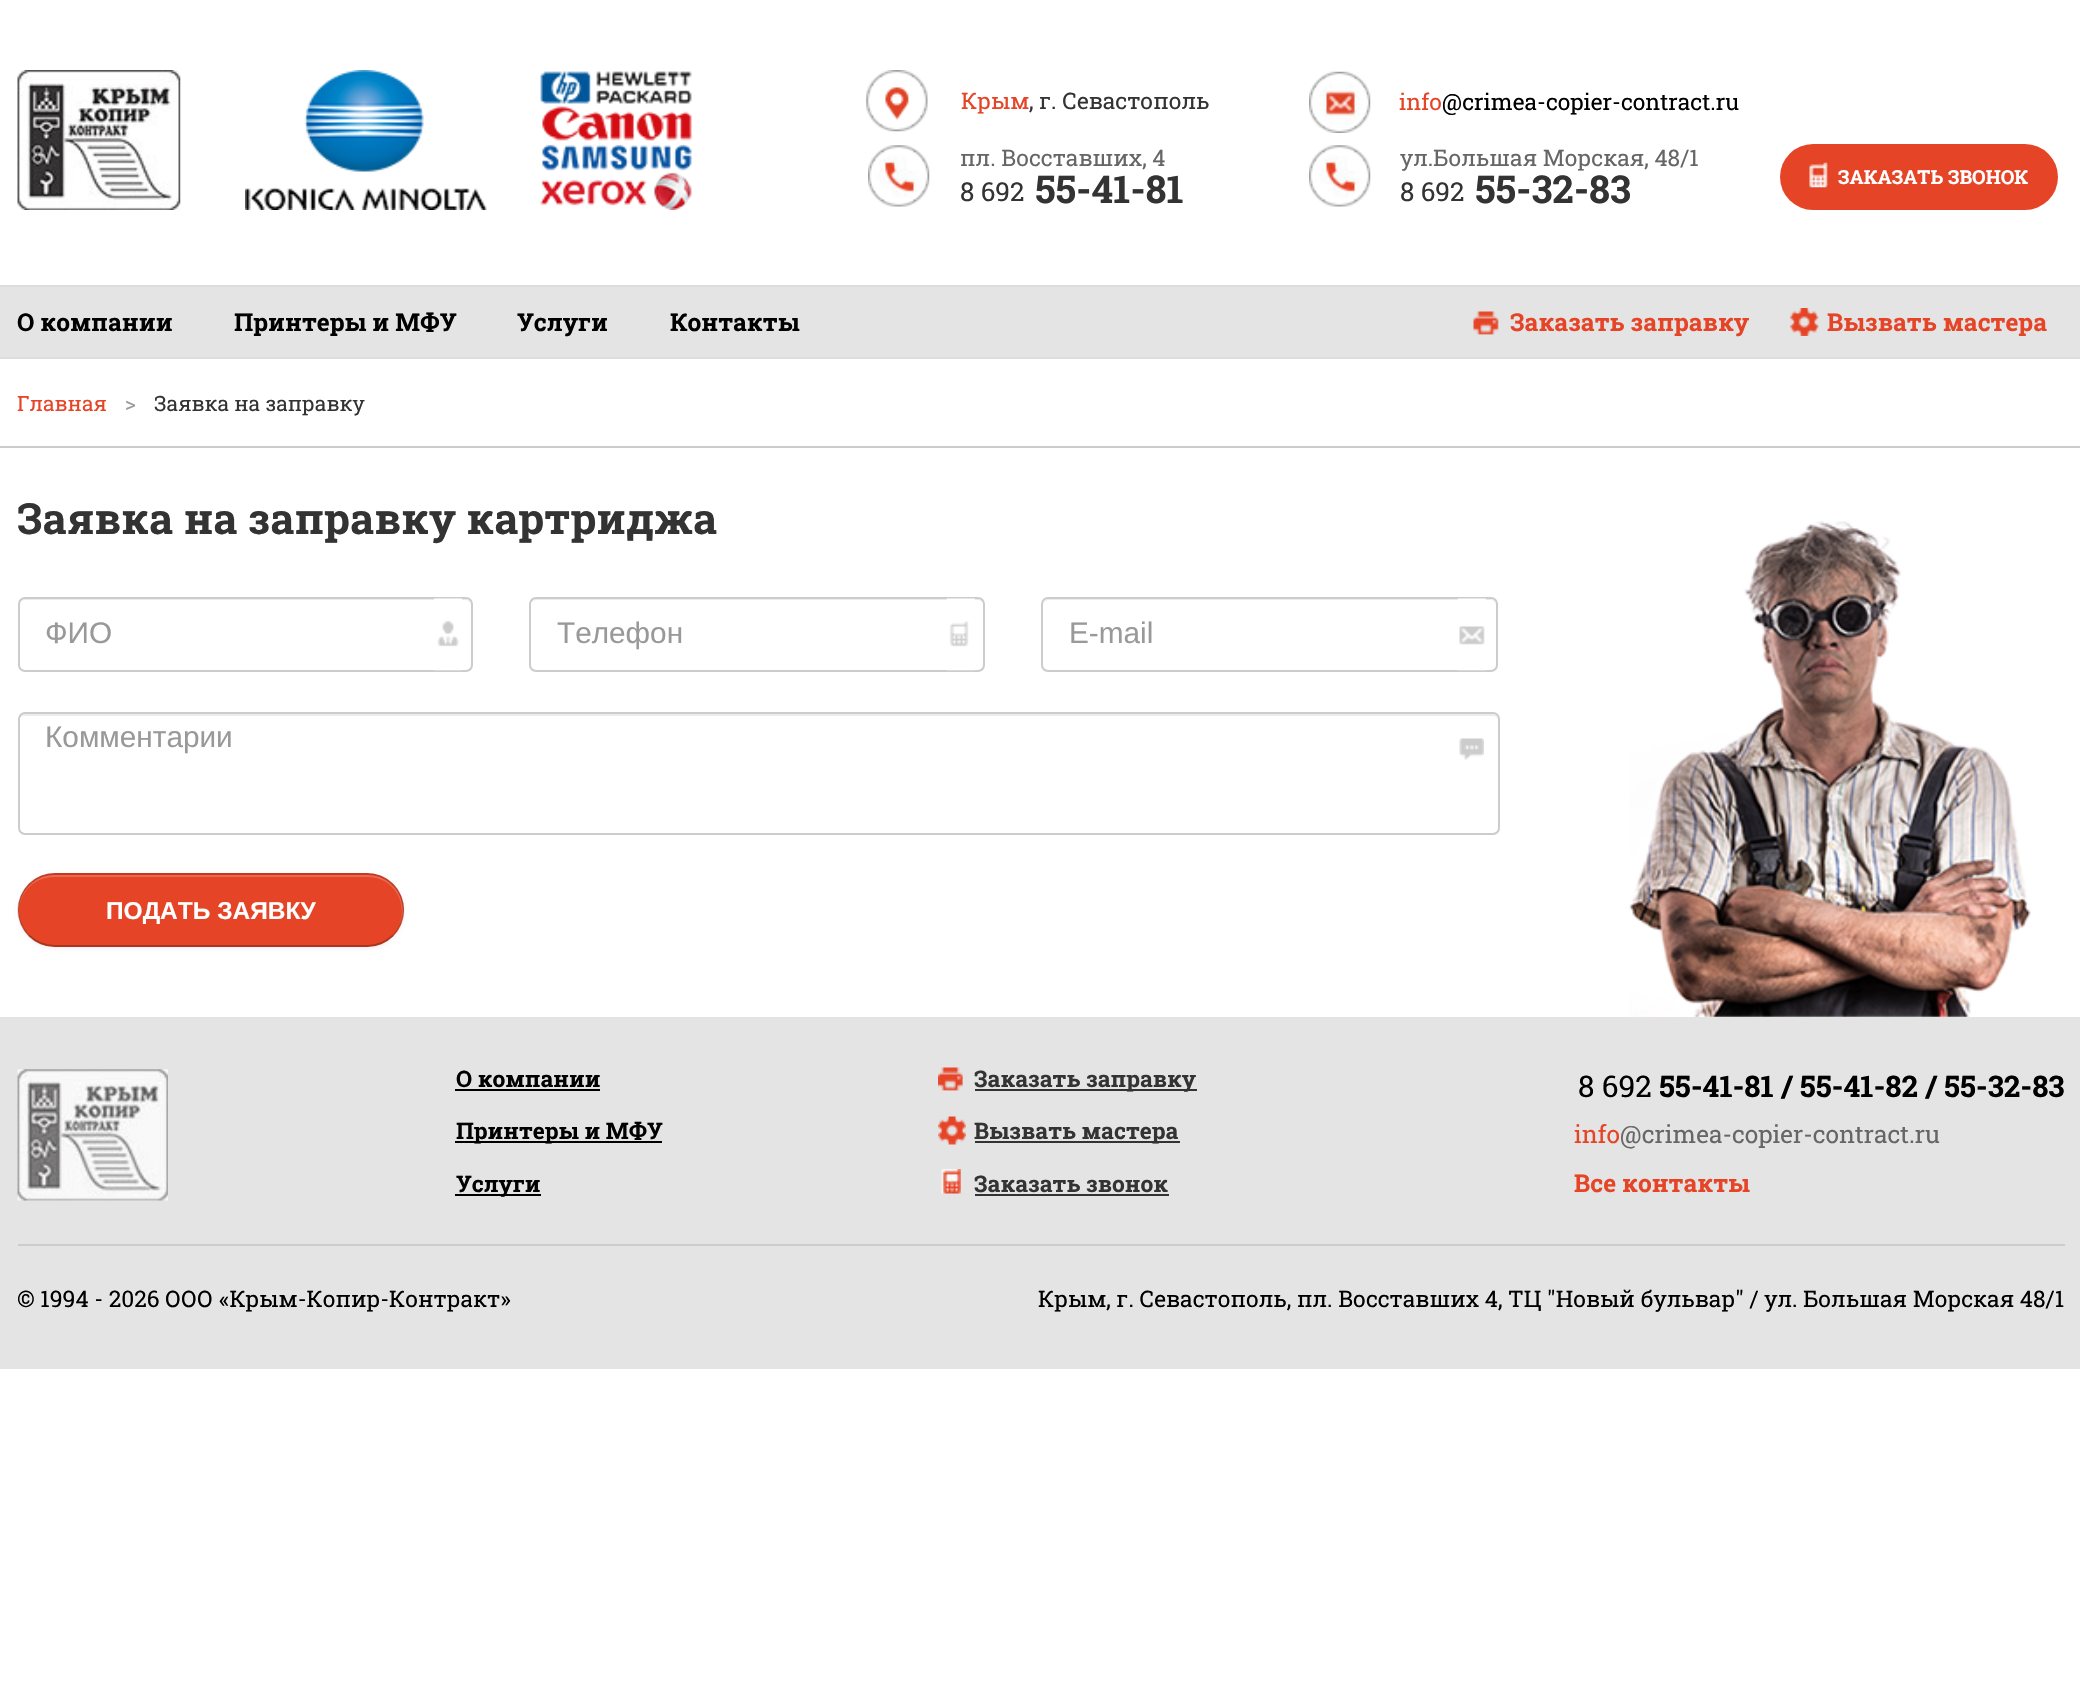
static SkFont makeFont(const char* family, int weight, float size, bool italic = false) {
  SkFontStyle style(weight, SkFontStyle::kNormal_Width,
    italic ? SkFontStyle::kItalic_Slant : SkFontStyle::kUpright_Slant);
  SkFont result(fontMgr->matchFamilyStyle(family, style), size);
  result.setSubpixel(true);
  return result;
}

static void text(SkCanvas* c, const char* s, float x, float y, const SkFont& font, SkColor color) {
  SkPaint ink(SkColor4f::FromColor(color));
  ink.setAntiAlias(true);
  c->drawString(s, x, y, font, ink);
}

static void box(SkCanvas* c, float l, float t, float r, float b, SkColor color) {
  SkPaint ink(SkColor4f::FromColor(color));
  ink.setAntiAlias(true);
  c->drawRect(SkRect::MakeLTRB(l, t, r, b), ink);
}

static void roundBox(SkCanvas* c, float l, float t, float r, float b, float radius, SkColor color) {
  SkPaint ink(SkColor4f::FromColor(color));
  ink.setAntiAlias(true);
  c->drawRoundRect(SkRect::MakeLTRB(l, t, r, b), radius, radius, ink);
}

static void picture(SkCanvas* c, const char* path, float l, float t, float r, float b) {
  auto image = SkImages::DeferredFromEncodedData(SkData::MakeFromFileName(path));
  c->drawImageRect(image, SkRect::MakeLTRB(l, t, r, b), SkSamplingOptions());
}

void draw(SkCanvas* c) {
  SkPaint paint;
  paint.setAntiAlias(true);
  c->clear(0xffffffff);
  picture(c, "img_01.png", 17, 70, 181, 210);
  picture(c, "img_02.png", 245, 70, 487, 210);
  picture(c, "img_03.png", 540, 71, 692, 210);
  picture(c, "img_04.png", 866, 70, 928, 132);
  SkFont face1 = makeFont("Roboto Slab", 400, 22.75f);
  text(c, "Крым", 961, 109, face1, 0xffe64426);
  text(c, ", г. Севастополь", 1029, 109, face1, 0xff333333);
  picture(c, "img_05.png", 1309, 71, 1371, 133);
  text(c, "info", 1399, 110, face1, 0xffe64426);
  text(c, "@crimea-copier-contract.ru", 1442, 110, face1, 0xff000000);
  picture(c, "img_06.png", 1309, 145, 1371, 207);
  text(c, "ул.Большая Морская, 48/1", 1400, 166, face1, 0xff666666);
  SkFont face2 = makeFont("Roboto Slab", 400, 26);
  text(c, "8 692", 1400, 201, face2, 0xff333333);
  SkFont face3 = makeFont("Roboto Slab", 700, 38.5f);
  text(c, "55-32-83", 1475, 203, face3, 0xff333333);
  picture(c, "img_06.png", 868, 145, 930, 207);
  text(c, "пл. Восставших, 4", 960, 166, face1, 0xff666666);
  text(c, "8 692", 960, 201, face2, 0xff333333);
  text(c, "55-41-81", 1035, 203, face3, 0xff333333);
  roundBox(c, 1780, 144, 2058, 210, 33, 0xffe64426);
  picture(c, "img_07.png", 1809, 162, 1829, 188);
  SkFont face4 = makeFont("Roboto Slab", 700, 19.25f);
  text(c, "ЗАКАЗАТЬ ЗВОНОК", 1838, 184, face4, 0xffffffff);
  box(c, 0, 287, 2080, 357, 0xffe4e4e4);
  box(c, 0, 285, 2080, 287, 0xffdddddd);
  box(c, 0, 357, 2080, 359, 0xffdddddd);
  SkFont face5 = makeFont("Roboto Slab", 700, 24.5f);
  text(c, "О компании", 17, 331, face5, 0xff000000);
  text(c, "Принтеры и МФУ", 234, 331, face5, 0xff000000);
  text(c, "Услуги", 517, 331, face5, 0xff000000);
  text(c, "Контакты", 670, 331, face5, 0xff000000);
  picture(c, "img_08.png", 1473, 311, 1499, 335);
  text(c, "Заказать заправку", 1510, 331, face5, 0xffe64426);
  picture(c, "img_09.png", 1790, 308, 1819, 336);
  text(c, "Вызвать мастера", 1827, 331, face5, 0xffe64426);
  box(c, 0, 446, 2080, 448, 0xffcccccc);
  SkFont face6 = makeFont("Roboto Slab", 400, 21);
  text(c, "Главная", 17, 411, face6, 0xffe64426);
  text(c, ">", 125, 411, face6, 0xff999999);
  text(c, "Заявка на заправку", 154, 411, face6, 0xff333333);
  SkFont face7 = makeFont("Roboto Slab", 700, 42.9f);
  text(c, "Заявка на заправку картриджа", 17, 534, face7, 0xff333333);
  picture(c, "img_10.png", 1629, 521, 2031, 1017);
  paint.setColor(0xffececec);
  c->drawPath(SkPathBuilder().moveTo(24, 600).lineTo(466, 600).cubicTo(468, 600, 471, 603, 471, 606).cubicTo(471, 603, 470, 599, 466, 599).lineTo(24, 599).cubicTo(20, 599, 19, 603, 19, 606).cubicTo(19, 603, 22, 600, 24, 600).close().detach(), paint);
  paint.setStyle(SkPaint::kStroke_Style);
  paint.setStrokeWidth(2);
  paint.setColor(0xffcccccc);
  c->drawRoundRect(SkRect::MakeLTRB(19, 598, 472, 671), 6, 6, paint);
  SkFont face8 = makeFont("Liberation Sans", 400, 29.75f);
  text(c, "ФИО", 45, 643, face8, 0xff999999);
  picture(c, "img_11.png", 434, 598, 462, 671);
  paint.setStyle(SkPaint::kFill_Style);
  paint.setColor(0xffececec);
  c->drawPath(SkPathBuilder().moveTo(536, 600).lineTo(978, 600).cubicTo(981, 600, 984, 603, 984, 606).cubicTo(984, 603, 983, 599, 979, 599).lineTo(535, 599).cubicTo(531, 599, 530, 603, 530, 606).cubicTo(530, 603, 533, 600, 536, 600).close().detach(), paint);
  paint.setStyle(SkPaint::kStroke_Style);
  paint.setColor(0xffcccccc);
  c->drawRoundRect(SkRect::MakeLTRB(530, 598, 984, 671), 6, 6, paint);
  text(c, "Телефон", 557, 643, face8, 0xff999999);
  picture(c, "img_12.png", 946, 598, 975, 671);
  paint.setStyle(SkPaint::kFill_Style);
  paint.setColor(0xffececec);
  c->drawPath(SkPathBuilder().moveTo(1048, 600).lineTo(1491, 600).cubicTo(1494, 600, 1496, 603, 1496, 606).cubicTo(1496, 603, 1495, 599, 1491, 599).lineTo(1048, 599).cubicTo(1044, 599, 1043, 603, 1043, 606).cubicTo(1043, 603, 1045, 600, 1048, 600).close().detach(), paint);
  paint.setStyle(SkPaint::kStroke_Style);
  paint.setColor(0xffcccccc);
  c->drawRoundRect(SkRect::MakeLTRB(1042, 598, 1497, 671), 6, 6, paint);
  text(c, "E-mail", 1069, 643, face8, 0xff999999);
  picture(c, "img_13.png", 1457, 598, 1486, 671);
  paint.setStyle(SkPaint::kFill_Style);
  paint.setColor(0xffececec);
  c->drawPath(SkPathBuilder().moveTo(24, 716).lineTo(1493, 716).cubicTo(1496, 716, 1498, 718, 1498, 721).cubicTo(1498, 718, 1497, 714, 1493, 714).lineTo(24, 714).cubicTo(20, 714, 19, 718, 19, 721).cubicTo(19, 718, 22, 716, 24, 716).close().detach(), paint);
  paint.setStyle(SkPaint::kStroke_Style);
  paint.setColor(0xffcccccc);
  c->drawRoundRect(SkRect::MakeLTRB(19, 713, 1499, 834), 6, 6, paint);
  text(c, "Комментарии", 45, 747, face8, 0xff999999);
  picture(c, "img_14.png", 1459, 738, 1484, 760);
  paint.setStyle(SkPaint::kFill_Style);
  paint.setColor(0x0d000000);
  paint.setMaskFilter(SkMaskFilter::MakeBlur(kNormal_SkBlurStyle, 2));
  c->drawRoundRect(SkRect::MakeLTRB(18, 875, 404, 949), 37, 37, paint);
  paint.setMaskFilter(nullptr);
  roundBox(c, 18, 873, 404, 947, 37, 0xffe64426);
  paint.setColor(0xffeb6951);
  c->drawPath(SkPathBuilder().moveTo(54, 877).lineTo(368, 877).cubicTo(387, 877, 402, 892, 402, 912).cubicTo(402, 917, 401, 922, 399, 926).cubicTo(402, 921, 403, 916, 403, 910).cubicTo(403, 891, 387, 875, 368, 875).lineTo(54, 875).cubicTo(35, 875, 19, 891, 19, 910).lineTo(19, 911).cubicTo(20, 891, 35, 877, 54, 877).close().detach(), paint);
  paint.setStyle(SkPaint::kStroke_Style);
  paint.setStrokeWidth(1.8f);
  paint.setColor(0x40000000);
  c->drawPath(SkPathBuilder().moveTo(393, 935.5f).cubicTo(386, 942, 377, 946, 367.5f, 946).lineTo(54.5f, 946).cubicTo(44.5f, 946, 35.5f, 942, 29, 935.5f).detach(), paint);
  paint.setColor(0x26000000);
  c->drawPath(SkPathBuilder().moveTo(29, 935.5f).cubicTo(20.5f, 927, 16.5f, 914.5f, 19, 903).cubicTo(22.5f, 886.5f, 37.5f, 874, 54, 874).lineTo(367.5f, 874).cubicTo(384.5f, 874, 399.5f, 886.5f, 402.5f, 903).cubicTo(405, 914.5f, 401.5f, 927, 393, 935.5f).detach(), paint);
  SkFont face9 = makeFont("Liberation Sans", 700, 24.5f);
  text(c, "ПОДАТЬ ЗАЯВКУ", 106, 919, face9, 0xffffffff);
  box(c, 0, 1017, 2080, 1369, 0xffe4e4e4);
  picture(c, "img_15.png", 17, 1069, 168, 1201);
  SkFont face10 = makeFont("Roboto Slab", 700, 22.75f);
  text(c, "О компании", 456, 1087, face10, 0xff000000);
  box(c, 455, 1089, 600, 1091, 0xff000000);
  box(c, 455, 1141, 662, 1143, 0xff000000);
  text(c, "Принтеры и МФУ", 456, 1139, face10, 0xff000000);
  box(c, 455, 1194, 541, 1196, 0xff000000);
  text(c, "Услуги", 456, 1192, face10, 0xff000000);
  picture(c, "img_16.png", 938, 1067, 963, 1091);
  box(c, 975, 1089, 1197, 1091, 0xff333333);
  text(c, "Заказать заправку", 974, 1087, face10, 0xff333333);
  picture(c, "img_17.png", 938, 1116, 966, 1145);
  box(c, 975, 1141, 1180, 1143, 0xff333333);
  text(c, "Вызвать мастера", 974, 1139, face10, 0xff333333);
  picture(c, "img_18.png", 941, 1169, 961, 1194);
  text(c, "Заказать звонок", 974, 1192, face10, 0xff333333);
  box(c, 975, 1194, 1169, 1196, 0xff333333);
  SkFont face11 = makeFont("Roboto Slab", 400, 29.75f);
  text(c, "8 692", 1578, 1097, face11, 0xff000000);
  SkFont face12 = makeFont("Roboto Slab", 700, 29.75f);
  text(c, "55-41-81 / 55-41-82 / 55-32-83", 1659, 1097, face12, 0xff000000);
  SkFont face13 = makeFont("Roboto Slab", 400, 24.5f);
  text(c, "info", 1574, 1143, face13, 0xffe64426);
  text(c, "@crimea-copier-contract.ru", 1620, 1143, face13, 0xff666666);
  text(c, "Все контакты", 1574, 1192, face5, 0xffe64426);
  box(c, 18, 1244, 2065, 1246, 0xffcccccc);
  text(c, "© 1994 - 2026 ООО «Крым-Копир-Контракт»", 17, 1307, face1, 0xff000000);
  text(c, "Крым, г. Севастополь, пл. Восставших 4, ТЦ \"Новый бульвар\" / ул. Большая Морская 48/1", 1038, 1307, face1, 0xff000000);
}
